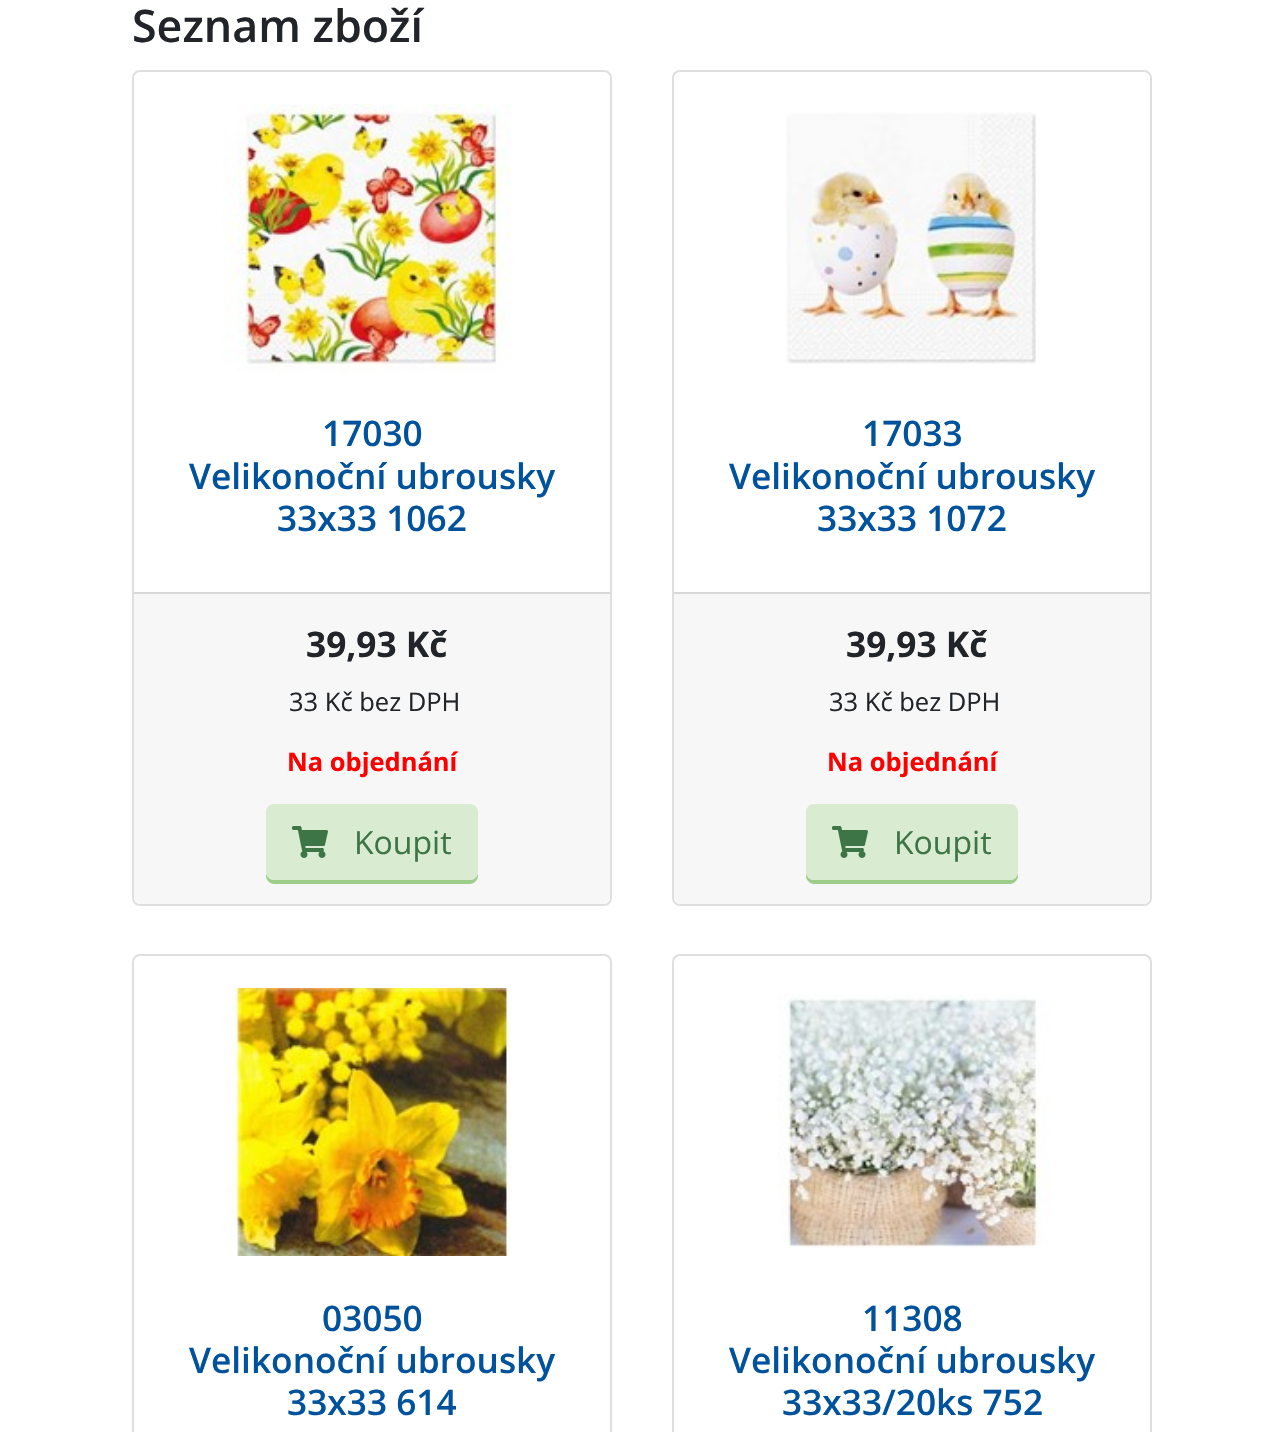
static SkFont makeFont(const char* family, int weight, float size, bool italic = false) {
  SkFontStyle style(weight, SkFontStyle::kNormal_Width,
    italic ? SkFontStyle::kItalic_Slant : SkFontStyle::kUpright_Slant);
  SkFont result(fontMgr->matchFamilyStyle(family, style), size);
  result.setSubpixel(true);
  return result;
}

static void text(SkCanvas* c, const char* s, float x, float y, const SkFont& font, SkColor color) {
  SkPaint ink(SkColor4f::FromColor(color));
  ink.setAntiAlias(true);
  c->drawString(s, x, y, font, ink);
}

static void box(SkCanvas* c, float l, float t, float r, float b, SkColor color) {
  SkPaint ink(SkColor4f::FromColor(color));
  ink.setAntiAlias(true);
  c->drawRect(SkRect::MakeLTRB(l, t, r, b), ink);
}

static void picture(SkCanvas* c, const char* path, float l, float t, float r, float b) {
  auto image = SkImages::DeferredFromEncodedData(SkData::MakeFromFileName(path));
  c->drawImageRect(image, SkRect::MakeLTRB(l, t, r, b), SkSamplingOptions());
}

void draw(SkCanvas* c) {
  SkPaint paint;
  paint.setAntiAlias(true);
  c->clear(0xffffffff);
  SkFont face1 = makeFont("Open Sans", 600, 44.75f);
  text(c, "Seznam zboží", 132, 42, face1, 0xff212529);
  paint.setStyle(SkPaint::kStroke_Style);
  paint.setStrokeWidth(2);
  paint.setColor(0xffdfdfdf);
  c->drawRoundRect(SkRect::MakeLTRB(133, 71, 611, 905), 7, 7, paint);
  picture(c, "img_01.png", 223, 104, 512, 372);
  SkFont face2 = makeFont("Open Sans", 600, 35.25f);
  text(c, "17030", 322, 446, face2, 0xff00529c);
  text(c, "Velikonoční ubrousky", 189, 489, face2, 0xff00529c);
  text(c, "33x33 1062", 277, 531, face2, 0xff00529c);
  paint.setStyle(SkPaint::kFill_Style);
  paint.setColor(0xfff7f7f7);
  c->drawPath(SkPathBuilder().moveTo(134, 592).lineTo(610, 592).lineTo(610, 898).cubicTo(610, 901.5f, 607.5f, 904, 604, 904).lineTo(140, 904).cubicTo(136.5f, 904, 134, 901.5f, 134, 898).close().detach(), paint);
  box(c, 134, 592, 610, 594, 0xffd8d8d8);
  SkFont face3 = makeFont("Open Sans", 700, 35.25f);
  text(c, "39,93 Kč", 306, 657, face3, 0xff212529);
  SkFont face4 = makeFont("Open Sans", 400, 25.5f);
  text(c, "33 Kč bez DPH", 289, 711, face4, 0xff212529);
  SkFont face5 = makeFont("Open Sans", 700, 25.5f);
  text(c, "Na objednání", 287, 771, face5, 0xffff0000);
  paint.setColor(0xff9dce89);
  c->drawPath(SkPathBuilder().moveTo(266, 872).lineTo(266, 876).cubicTo(266, 880, 270, 884, 274, 884).lineTo(470, 884).cubicTo(474, 884, 478, 880, 478, 876).lineTo(478, 872).cubicTo(478, 876, 474, 880, 470, 880).lineTo(274, 880).cubicTo(270, 880, 266, 876, 266, 872).close().detach(), paint);
  paint.setColor(0xffd9ecd1);
  c->drawRoundRect(SkRect::MakeLTRB(267, 805, 477, 879), 7, 7, paint);
  paint.setStyle(SkPaint::kStroke_Style);
  c->drawRoundRect(SkRect::MakeLTRB(267, 805, 477, 879), 7, 7, paint);
  picture(c, "img_02.png", 292, 826, 328, 858);
  SkFont face6 = makeFont("Open Sans", 400, 32);
  text(c, "Koupit", 354, 854, face6, 0xff3e7546);
  paint.setColor(0xffdfdfdf);
  c->drawRoundRect(SkRect::MakeLTRB(673, 71, 1151, 905), 7, 7, paint);
  picture(c, "img_03.png", 786, 112, 1036, 364);
  text(c, "17033", 862, 446, face2, 0xff00529c);
  text(c, "Velikonoční ubrousky", 729, 489, face2, 0xff00529c);
  text(c, "33x33 1072", 817, 531, face2, 0xff00529c);
  paint.setStyle(SkPaint::kFill_Style);
  paint.setColor(0xfff7f7f7);
  c->drawPath(SkPathBuilder().moveTo(674, 592).lineTo(1150, 592).lineTo(1150, 898).cubicTo(1150, 901.5f, 1147.5f, 904, 1144, 904).lineTo(680, 904).cubicTo(676.5f, 904, 674, 901.5f, 674, 898).close().detach(), paint);
  box(c, 674, 592, 1150, 594, 0xffd8d8d8);
  text(c, "39,93 Kč", 846, 657, face3, 0xff212529);
  text(c, "33 Kč bez DPH", 829, 711, face4, 0xff212529);
  text(c, "Na objednání", 827, 771, face5, 0xffff0000);
  paint.setColor(0xff9dce89);
  c->drawPath(SkPathBuilder().moveTo(806, 872).lineTo(806, 876).cubicTo(806, 880, 810, 884, 814, 884).lineTo(1010, 884).cubicTo(1014, 884, 1018, 880, 1018, 876).lineTo(1018, 872).cubicTo(1018, 876, 1014, 880, 1010, 880).lineTo(814, 880).cubicTo(810, 880, 806, 876, 806, 872).close().detach(), paint);
  paint.setColor(0xffd9ecd1);
  c->drawRoundRect(SkRect::MakeLTRB(807, 805, 1017, 879), 7, 7, paint);
  paint.setStyle(SkPaint::kStroke_Style);
  c->drawRoundRect(SkRect::MakeLTRB(807, 805, 1017, 879), 7, 7, paint);
  picture(c, "img_02.png", 832, 826, 868, 858);
  text(c, "Koupit", 894, 854, face6, 0xff3e7546);
  paint.setColor(0xffdfdfdf);
  c->drawRoundRect(SkRect::MakeLTRB(133, 955, 611, 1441), 7, 7, paint);
  picture(c, "img_04.png", 223, 988, 510, 1256);
  text(c, "03050", 322, 1331, face2, 0xff00529c);
  text(c, "Velikonoční ubrousky", 189, 1373, face2, 0xff00529c);
  text(c, "33x33 614", 287, 1415, face2, 0xff00529c);
  c->drawRoundRect(SkRect::MakeLTRB(673, 955, 1151, 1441), 7, 7, paint);
  picture(c, "img_05.png", 778, 994, 1050, 1248);
  text(c, "11308", 862, 1331, face2, 0xff00529c);
  text(c, "Velikonoční ubrousky", 729, 1373, face2, 0xff00529c);
  text(c, "33x33/20ks 752", 782, 1415, face2, 0xff00529c);
}
